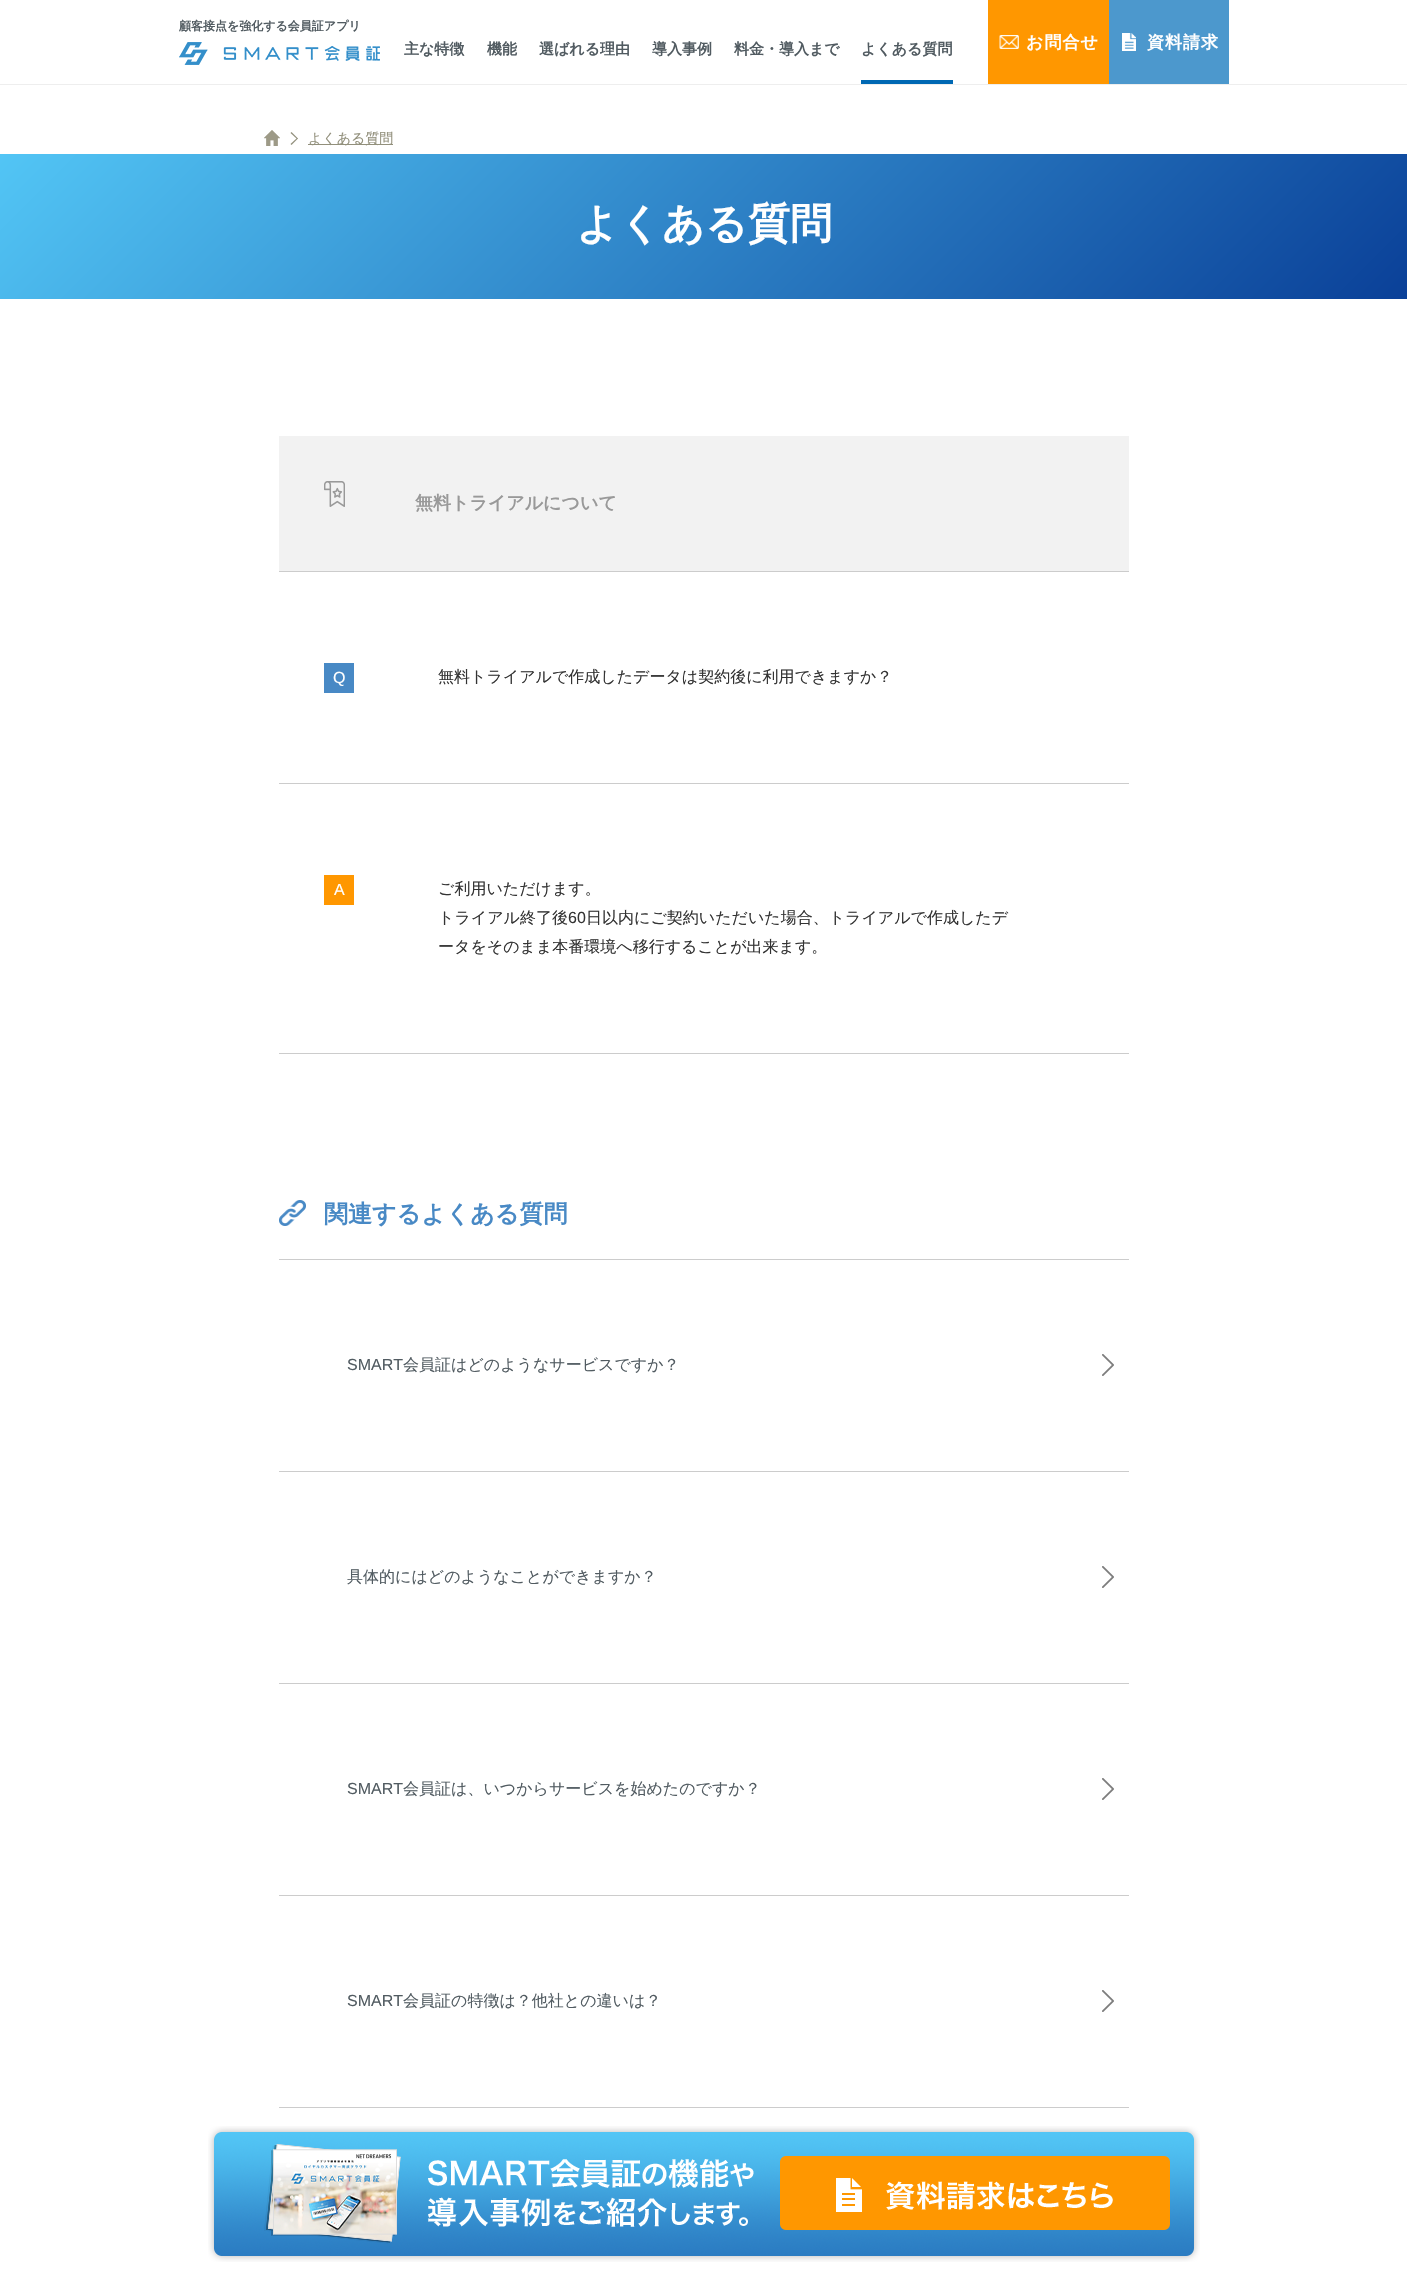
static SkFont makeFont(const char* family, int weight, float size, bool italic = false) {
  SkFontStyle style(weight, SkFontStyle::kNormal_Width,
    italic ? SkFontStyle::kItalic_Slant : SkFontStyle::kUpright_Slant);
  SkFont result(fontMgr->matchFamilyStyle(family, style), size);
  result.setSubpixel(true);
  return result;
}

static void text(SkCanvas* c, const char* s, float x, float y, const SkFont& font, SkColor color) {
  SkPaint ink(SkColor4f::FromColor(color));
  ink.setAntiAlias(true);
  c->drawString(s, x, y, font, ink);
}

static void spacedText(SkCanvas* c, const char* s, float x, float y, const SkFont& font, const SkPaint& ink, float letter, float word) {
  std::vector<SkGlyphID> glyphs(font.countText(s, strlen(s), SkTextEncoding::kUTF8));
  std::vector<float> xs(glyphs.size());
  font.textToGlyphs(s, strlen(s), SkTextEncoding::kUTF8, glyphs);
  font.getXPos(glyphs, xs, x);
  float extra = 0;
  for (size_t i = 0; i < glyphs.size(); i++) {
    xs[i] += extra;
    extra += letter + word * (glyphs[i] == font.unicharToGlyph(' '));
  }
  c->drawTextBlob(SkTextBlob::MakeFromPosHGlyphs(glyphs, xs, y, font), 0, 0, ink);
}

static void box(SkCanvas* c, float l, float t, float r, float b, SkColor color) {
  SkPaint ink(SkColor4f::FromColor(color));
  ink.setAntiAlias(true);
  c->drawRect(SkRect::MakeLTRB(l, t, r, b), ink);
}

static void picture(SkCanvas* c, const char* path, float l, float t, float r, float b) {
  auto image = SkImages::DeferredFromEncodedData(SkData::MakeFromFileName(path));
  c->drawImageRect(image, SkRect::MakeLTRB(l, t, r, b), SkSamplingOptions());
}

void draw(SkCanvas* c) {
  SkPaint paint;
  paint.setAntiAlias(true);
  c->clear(0xffffffff);
  box(c, 0, 84, 1407, 85, 0xffeeeeee);
  SkFont face1 = makeFont("WenQuanYi Zen Hei", 700, 12);
  text(c, "顧客接点を強化する会員証アプリ", 179, 30, face1, 0xff515b61);
  picture(c, "img_01.png", 179, 42, 380, 65);
  SkFont face2 = makeFont("WenQuanYi Zen Hei", 700, 15);
  text(c, "主な特徴", 404, 54, face2, 0xff515b61);
  text(c, "機能", 487, 54, face2, 0xff515b61);
  text(c, "選ばれる理由", 539, 54, face2, 0xff515b61);
  text(c, "導入事例", 652, 54, face2, 0xff515b61);
  text(c, "料金・導入まで", 734, 54, face2, 0xff515b61);
  box(c, 861, 80, 953, 84, 0xff0068b3);
  text(c, "よくある質問", 861, 54, face2, 0xff515b61);
  box(c, 988, 0, 1109, 84, 0xffff9700);
  picture(c, "img_02.png", 999, 35, 1019, 49);
  SkFont face3 = makeFont("WenQuanYi Zen Hei", 700, 17);
  paint.setColor(0xffffffff);
  spacedText(c, "お問合せ", 1026, 48, face3, paint, 1, 0);
  box(c, 1109, 0, 1229, 84, 0xff4c98cd);
  picture(c, "img_03.png", 1122, 33, 1136, 51);
  spacedText(c, "資料請求", 1147, 48, face3, paint, 1, 0);
  picture(c, "img_04.png", 264, 130, 280, 146);
  paint.setColor(0xff92907c);
  c->drawPath(SkPathBuilder().moveTo(291.5f, 132).lineTo(298, 138.5f).lineTo(297, 139).lineTo(290.5f, 133).close().detach(), paint);
  c->drawPath(SkPathBuilder().moveTo(297, 138).lineTo(298, 138.5f).lineTo(291.5f, 145).lineTo(290.5f, 144).close().detach(), paint);
  box(c, 308, 144, 393, 145, 0xff92907c);
  SkFont face4 = makeFont("WenQuanYi Zen Hei", 500, 14);
  text(c, "よくある質問", 308, 143, face4, 0xff92907c);
  {
    const SkColor colors[] = {0xff0a4098, 0xff52c5f5};
    const float stops[] = {0, 1};
    const SkPoint ends[] = {{1092, 615}, {316, -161}};
    paint.setShader(SkGradientShader::MakeLinear(ends, colors, stops, 2, SkTileMode::kClamp));
    paint.setAlpha(255);
  }
  c->drawRect(SkRect::MakeLTRB(0, 154, 1407, 299), paint);
  SkFont face5 = makeFont("WenQuanYi Zen Hei", 700, 42);
  text(c, "よくある質問", 576, 238, face5, 0xffffffff);
  box(c, 279, 436, 1129, 571, 0xfff2f2f2);
  picture(c, "img_05.png", 324, 481, 345, 507);
  SkFont face6 = makeFont("WenQuanYi Zen Hei", 700, 18);
  text(c, "無料トライアルについて", 415, 509, face6, 0xff999999);
  box(c, 279, 571, 1129, 572, 0xffcccccc);
  box(c, 324, 663, 354, 693, 0xff4889c5);
  SkFont face7 = makeFont("Liberation Sans", 400, 16);
  text(c, "Q", 333, 683, face7, 0xffffffff);
  SkFont face8 = makeFont("WenQuanYi Zen Hei", 500, 16);
  text(c, "無料トライアルで作成したデータは契約後に利用できますか？", 438, 682, face8, 0xff333333);
  box(c, 279, 783, 1129, 784, 0xffcccccc);
  box(c, 279, 1053, 1129, 1054, 0xffcccccc);
  box(c, 324, 875, 354, 905, 0xffff9700);
  text(c, "A", 334, 895, face7, 0xffffffff);
  text(c, "ご利用いただけます。", 438, 894, face8, 0xff333333);
  text(c, "トライアル終了後", 438, 923, face8, 0xff333333);
  text(c, "60", 568, 923, face7, 0xff333333);
  text(c, "日以内にご契約いただいた場合、トライアルで作成したデ", 586, 923, face8, 0xff333333);
  text(c, "ータをそのまま本番環境へ移行することが出来ます。", 438, 952, face8, 0xff333333);
  picture(c, "img_06.png", 279, 1200, 306, 1226);
  SkFont face9 = makeFont("WenQuanYi Zen Hei", 700, 24);
  text(c, "関連するよくある質問", 324, 1222, face9, 0xff4889c5);
  box(c, 279, 1259, 1129, 1260, 0xffcccccc);
  text(c, "SMART", 347, 1370, face7, 0xff515b61);
  text(c, "会員証はどのようなサービスですか？", 403, 1370, face8, 0xff515b61);
  picture(c, "img_07.png", 1102, 1354, 1114, 1376);
  box(c, 279, 1471, 1129, 1472, 0xffcccccc);
  text(c, "具体的にはどのようなことができますか？", 347, 1582, face8, 0xff515b61);
  picture(c, "img_07.png", 1102, 1566, 1114, 1588);
  box(c, 279, 1683, 1129, 1684, 0xffcccccc);
  text(c, "SMART", 347, 1794, face7, 0xff515b61);
  text(c, "会員証は、いつからサービスを始めたのですか？", 403, 1794, face8, 0xff515b61);
  picture(c, "img_07.png", 1102, 1778, 1114, 1800);
  box(c, 279, 1895, 1129, 1896, 0xffcccccc);
  text(c, "SMART", 347, 2006, face7, 0xff515b61);
  text(c, "会員証の特徴は？他社との違いは？", 403, 2006, face8, 0xff515b61);
  picture(c, "img_07.png", 1102, 1990, 1114, 2012);
  box(c, 279, 2107, 1129, 2108, 0xffcccccc);
  picture(c, "img_08.png", 208, 2126, 1200, 2262);
}
